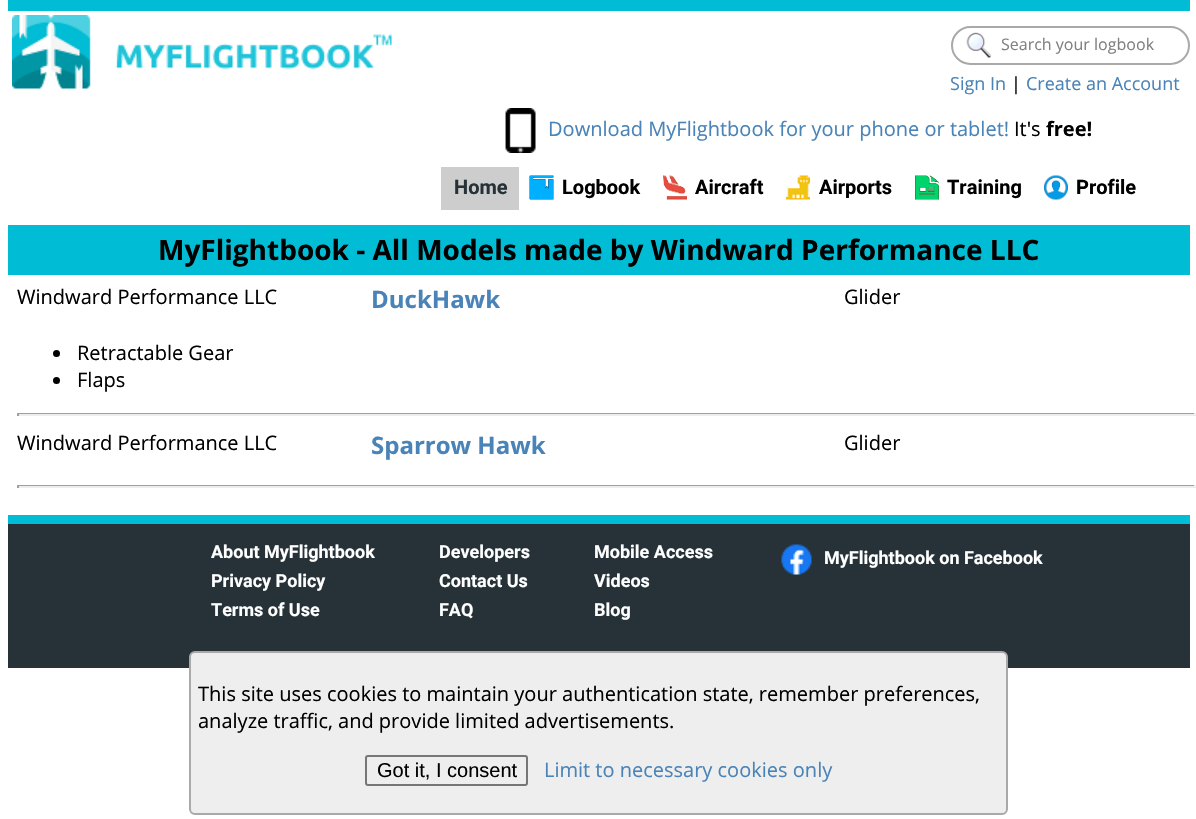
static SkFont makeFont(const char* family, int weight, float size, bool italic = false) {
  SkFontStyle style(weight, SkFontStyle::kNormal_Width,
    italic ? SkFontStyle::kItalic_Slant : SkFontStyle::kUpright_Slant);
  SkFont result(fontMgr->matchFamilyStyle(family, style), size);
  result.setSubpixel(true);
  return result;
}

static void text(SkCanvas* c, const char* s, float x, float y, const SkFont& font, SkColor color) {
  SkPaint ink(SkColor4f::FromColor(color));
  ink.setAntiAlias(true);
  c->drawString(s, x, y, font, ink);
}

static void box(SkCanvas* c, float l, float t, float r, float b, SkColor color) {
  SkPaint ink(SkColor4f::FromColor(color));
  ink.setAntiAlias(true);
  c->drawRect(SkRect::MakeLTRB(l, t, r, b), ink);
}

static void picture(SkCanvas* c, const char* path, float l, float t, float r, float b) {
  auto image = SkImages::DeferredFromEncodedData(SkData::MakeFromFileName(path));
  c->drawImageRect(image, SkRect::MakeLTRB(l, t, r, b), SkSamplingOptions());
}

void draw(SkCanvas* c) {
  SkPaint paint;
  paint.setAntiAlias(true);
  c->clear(0xffffffff);
  box(c, 8, 0, 1190, 11, 0xff00bcd4);
  picture(c, "img_01.png", 12, 15, 392, 89);
  paint.setStyle(SkPaint::kStroke_Style);
  paint.setStrokeWidth(2);
  paint.setColor(0xffa9a9a9);
  c->drawRoundRect(SkRect::MakeLTRB(952, 27, 1189, 64), 18.5f, 18.5f, paint);
  picture(c, "img_02.png", 966, 32, 992, 58);
  SkFont face1 = makeFont("Open Sans", 400, 16);
  text(c, "Search your logbook", 1001, 50, face1, 0xff808080);
  SkFont face2 = makeFont("Open Sans", 400, 18);
  text(c, "Sign In", 950, 90, face2, 0xff4983b7);
  text(c, "|", 1011, 90, face2, 0xff000000);
  text(c, "Create an Account", 1026, 90, face2, 0xff4983b7);
  picture(c, "img_03.png", 505, 108, 536, 153);
  SkFont face3 = makeFont("Open Sans", 400, 20);
  text(c, "Download MyFlightbook for your phone or tablet!", 548, 136, face3, 0xff4983b7);
  text(c, "It's", 1014, 136, face3, 0xff000000);
  SkFont face4 = makeFont("Open Sans", 700, 20);
  text(c, "free!", 1046, 136, face4, 0xff000000);
  box(c, 441, 167, 519, 210, 0xffcdcdcd);
  SkFont face5 = makeFont("Roboto", 700, 20);
  text(c, "Home", 454, 194, face5, 0xff263238);
  picture(c, "img_04.png", 529, 175, 554, 200);
  text(c, "Logbook", 562, 194, face5, 0xff000000);
  picture(c, "img_05.png", 663, 175, 687, 200);
  text(c, "Aircraft", 695, 194, face5, 0xff000000);
  picture(c, "img_06.png", 786, 175, 810, 200);
  text(c, "Airports", 819, 194, face5, 0xff000000);
  picture(c, "img_07.png", 915, 175, 939, 200);
  text(c, "Training", 947, 194, face5, 0xff000000);
  picture(c, "img_08.png", 1044, 175, 1068, 200);
  text(c, "Profile", 1076, 194, face5, 0xff000000);
  box(c, 8, 225, 1190, 275, 0xff00bcd4);
  SkFont face6 = makeFont("Open Sans", 700, 28);
  text(c, "MyFlightbook - All Models made by Windward Performance LLC", 158, 260, face6, 0xff000000);
  text(c, "Windward Performance LLC", 17, 304, face3, 0xff000000);
  SkFont face7 = makeFont("Open Sans", 700, 24);
  text(c, "DuckHawk", 371, 308, face7, 0xff4983b7);
  text(c, "Glider", 844, 304, face3, 0xff000000);
  paint.setStyle(SkPaint::kFill_Style);
  paint.setColor(0xff000000);
  c->drawCircle(56.5f, 353.5f, 3.5f, paint);
  text(c, "Retractable Gear", 77, 360, face3, 0xff000000);
  c->drawCircle(56.5f, 380.5f, 3.5f, paint);
  text(c, "Flaps", 77, 387, face3, 0xff000000);
  box(c, 17, 413, 1196, 414, 0xff9f9f9f);
  box(c, 1194, 413, 1196, 416, 0xffeeeeee);
  box(c, 17, 414, 1196, 416, 0xffeeeeee);
  box(c, 17, 413, 19, 416, 0xff9f9f9f);
  text(c, "Windward Performance LLC", 17, 450, face3, 0xff000000);
  text(c, "Sparrow Hawk", 371, 454, face7, 0xff4983b7);
  text(c, "Glider", 844, 450, face3, 0xff000000);
  box(c, 17, 485, 1196, 486, 0xff9f9f9f);
  box(c, 1194, 485, 1196, 488, 0xffeeeeee);
  box(c, 17, 486, 1196, 488, 0xffeeeeee);
  box(c, 17, 485, 19, 488, 0xff9f9f9f);
  box(c, 8, 524, 1190, 668, 0xff263238);
  box(c, 8, 515, 1190, 524, 0xff00bcd4);
  SkFont face8 = makeFont("Roboto", 700, 18);
  text(c, "About MyFlightbook", 211, 558, face8, 0xffffffff);
  text(c, "Privacy Policy", 211, 587, face8, 0xffffffff);
  text(c, "Terms of Use", 211, 616, face8, 0xffffffff);
  text(c, "Developers", 439, 558, face8, 0xffffffff);
  text(c, "Contact Us", 439, 587, face8, 0xffffffff);
  text(c, "FAQ", 439, 616, face8, 0xffffffff);
  text(c, "Mobile Access", 594, 558, face8, 0xffffffff);
  text(c, "Videos", 594, 587, face8, 0xffffffff);
  text(c, "Blog", 594, 616, face8, 0xffffffff);
  picture(c, "img_09.png", 781, 544, 812, 575);
  text(c, "MyFlightbook on Facebook", 824, 564, face8, 0xffffffff);
  paint.setColor(0xffeeeeee);
  c->drawRoundRect(SkRect::MakeLTRB(190, 652, 1007, 814), 5, 5, paint);
  paint.setStyle(SkPaint::kStroke_Style);
  paint.setColor(0xffa9a9a9);
  c->drawRoundRect(SkRect::MakeLTRB(190, 652, 1007, 814), 5, 5, paint);
  text(c, "This site uses cookies to maintain your authentication state, remember preferences,", 198, 701, face3, 0xff000000);
  text(c, "analyze traffic, and provide limited advertisements.", 198, 728, face3, 0xff000000);
  paint.setColor(0xff767676);
  c->drawRoundRect(SkRect::MakeLTRB(366, 756, 527, 785), 2, 2, paint);
  SkFont face9 = makeFont("Liberation Sans", 400, 20);
  text(c, "Got it, I consent", 377, 777, face9, 0xff000000);
  text(c, "Limit to necessary cookies only", 544, 777, face3, 0xff4983b7);
}
